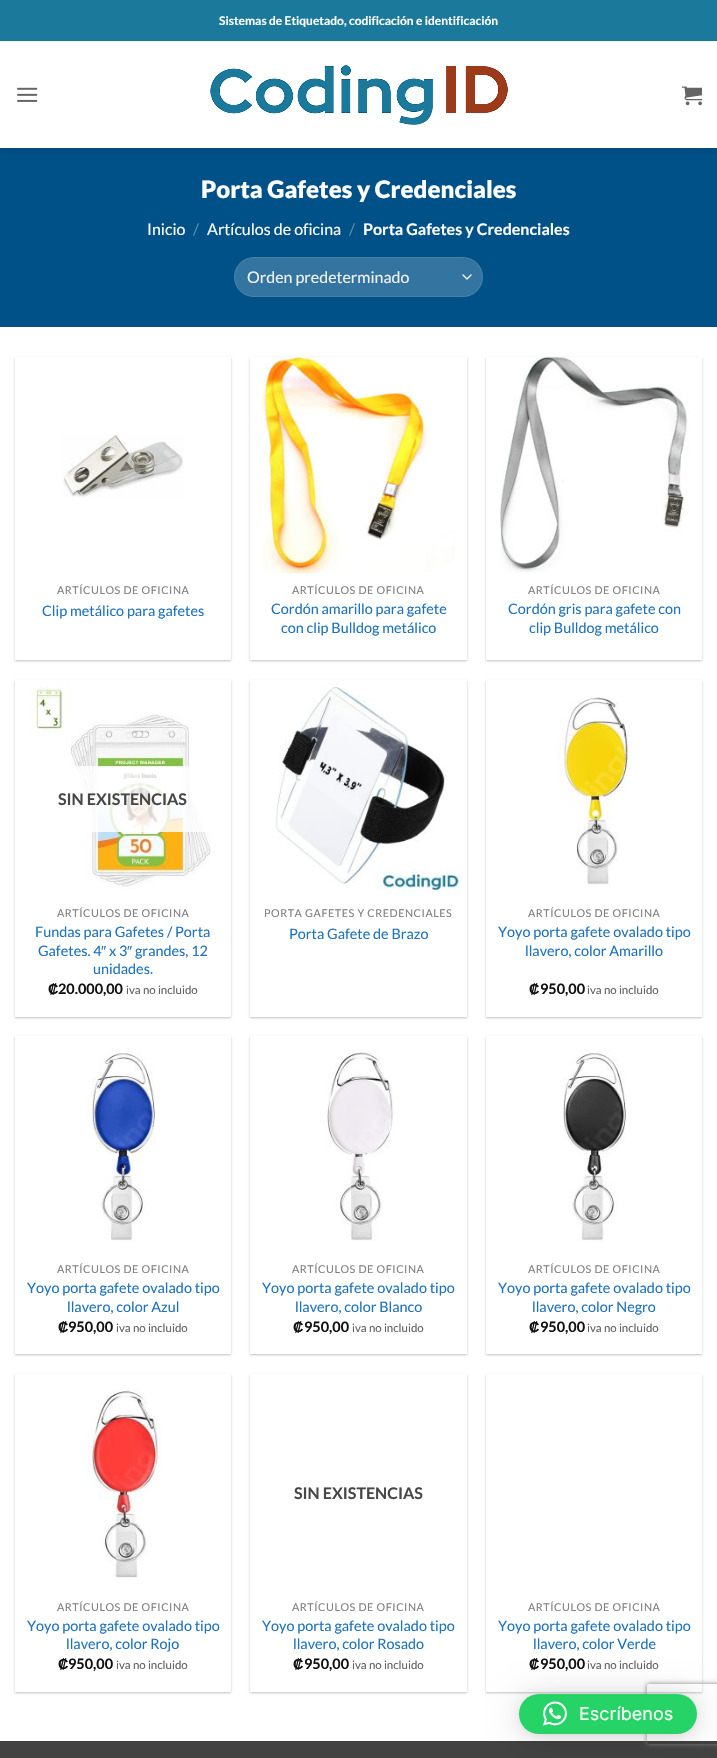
static SkFont makeFont(const char* family, int weight, float size, bool italic = false) {
  SkFontStyle style(weight, SkFontStyle::kNormal_Width,
    italic ? SkFontStyle::kItalic_Slant : SkFontStyle::kUpright_Slant);
  SkFont result(fontMgr->matchFamilyStyle(family, style), size);
  result.setSubpixel(true);
  return result;
}

static void text(SkCanvas* c, const char* s, float x, float y, const SkFont& font, SkColor color) {
  SkPaint ink(SkColor4f::FromColor(color));
  ink.setAntiAlias(true);
  c->drawString(s, x, y, font, ink);
}

static void spacedText(SkCanvas* c, const char* s, float x, float y, const SkFont& font, const SkPaint& ink, float letter, float word) {
  std::vector<SkGlyphID> glyphs(font.countText(s, strlen(s), SkTextEncoding::kUTF8));
  std::vector<float> xs(glyphs.size());
  font.textToGlyphs(s, strlen(s), SkTextEncoding::kUTF8, glyphs);
  font.getXPos(glyphs, xs, x);
  float extra = 0;
  for (size_t i = 0; i < glyphs.size(); i++) {
    xs[i] += extra;
    extra += letter + word * (glyphs[i] == font.unicharToGlyph(' '));
  }
  c->drawTextBlob(SkTextBlob::MakeFromPosHGlyphs(glyphs, xs, y, font), 0, 0, ink);
}

static void box(SkCanvas* c, float l, float t, float r, float b, SkColor color) {
  SkPaint ink(SkColor4f::FromColor(color));
  ink.setAntiAlias(true);
  c->drawRect(SkRect::MakeLTRB(l, t, r, b), ink);
}

static void roundBox(SkCanvas* c, float l, float t, float r, float b, float radius, SkColor color) {
  SkPaint ink(SkColor4f::FromColor(color));
  ink.setAntiAlias(true);
  c->drawRoundRect(SkRect::MakeLTRB(l, t, r, b), radius, radius, ink);
}

static void picture(SkCanvas* c, const char* path, float l, float t, float r, float b) {
  auto image = SkImages::DeferredFromEncodedData(SkData::MakeFromFileName(path));
  c->drawImageRect(image, SkRect::MakeLTRB(l, t, r, b), SkSamplingOptions());
}

void draw(SkCanvas* c) {
  SkPaint paint;
  paint.setAntiAlias(true);
  c->clear(0xffffffff);
  box(c, 0, 148, 717, 327, 0xff005188);
  c->save();
  c->clipRect(SkRect::MakeLTRB(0, 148, 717, 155));
  paint.setColor(0x26000000);
  paint.setMaskFilter(SkMaskFilter::MakeBlur(kNormal_SkBlurStyle, 5));
  c->drawRect(SkRect::MakeLTRB(1, 1, 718, 149), paint);
  paint.setMaskFilter(nullptr);
  c->restore();
  box(c, 0, 0, 717, 41, 0xff1b7a9b);
  SkFont face1 = makeFont("Lato", 700, 12);
  text(c, "Sistemas de Etiquetado, codificación e identificación", 219, 25, face1, 0xffffffff);
  picture(c, "img_01.png", 17, 87, 38, 102);
  picture(c, "img_02.png", 210, 65, 508, 125);
  picture(c, "img_03.png", 682, 86, 702, 106);
  box(c, 15, 148, 702, 149, 0xff0a4d7a);
  SkFont face2 = makeFont("Lato", 900, 24);
  text(c, "Porta Gafetes y Credenciales", 201, 198, face2, 0xffffffff);
  SkFont face3 = makeFont("Lato", 400, 16);
  text(c, "Inicio", 147, 235, face3, 0xffffffff);
  text(c, "/", 193, 235, face3, 0xff598eb2);
  text(c, "Artículos de oficina", 207, 235, face3, 0xffffffff);
  text(c, "/", 349, 235, face3, 0xff598eb2);
  SkFont face4 = makeFont("Lato", 700, 16);
  text(c, "Porta Gafetes y Credenciales", 363, 235, face4, 0xffffffff);
  roundBox(c, 234, 257, 483, 297, 20, 0xff3374a0);
  paint.setStyle(SkPaint::kStroke_Style);
  paint.setStrokeWidth(1.3f);
  paint.setStrokeCap(SkPaint::kRound_Cap);
  paint.setStrokeJoin(SkPaint::kRound_Join);
  paint.setColor(0xffffffff);
  c->drawPath(SkPathBuilder().moveTo(463, 275).lineTo(467, 279).lineTo(471, 275).detach(), paint);
  paint.setStrokeWidth(1);
  paint.setStrokeCap(SkPaint::kButt_Cap);
  paint.setStrokeJoin(SkPaint::kMiter_Join);
  paint.setColor(0x17ffffff);
  c->drawRoundRect(SkRect::MakeLTRB(234.5f, 257.5f, 482.5f, 296.5f), 19.5f, 19.5f, paint);
  text(c, "Orden predeterminado", 247, 283, face3, 0xfff1f1f1);
  c->save();
  c->clipPath(SkPathBuilder(SkPathFillType::kEvenOdd).moveTo(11, 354).lineTo(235, 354).lineTo(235, 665).lineTo(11, 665).close().moveTo(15, 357).lineTo(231, 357).lineTo(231, 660).lineTo(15, 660).close().detach(), true);
  paint.setStyle(SkPaint::kFill_Style);
  paint.setColor(0x3d000000);
  paint.setMaskFilter(SkMaskFilter::MakeBlur(kNormal_SkBlurStyle, 1));
  c->drawRect(SkRect::MakeLTRB(15, 358, 231, 661), paint);
  paint.setMaskFilter(nullptr);
  c->restore();
  picture(c, "img_04.png", 62, 434, 184, 498);
  SkFont face5 = makeFont("Lato", 400, 10.75f);
  paint.setColor(0xff808080);
  spacedText(c, "ARTÍCULOS DE OFICINA", 57, 594, face5, paint, 0.55f, 0);
  SkFont face6 = makeFont("Lato", 400, 14.4f);
  text(c, "Clip metálico para gafetes", 42, 616, face6, 0xff1e73be);
  c->save();
  c->clipPath(SkPathBuilder(SkPathFillType::kEvenOdd).moveTo(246, 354).lineTo(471, 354).lineTo(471, 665).lineTo(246, 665).close().moveTo(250, 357).lineTo(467, 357).lineTo(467, 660).lineTo(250, 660).close().detach(), true);
  paint.setColor(0x3d000000);
  paint.setMaskFilter(SkMaskFilter::MakeBlur(kNormal_SkBlurStyle, 1));
  c->drawRect(SkRect::MakeLTRB(250, 358, 467, 661), paint);
  paint.setMaskFilter(nullptr);
  c->restore();
  picture(c, "img_05.png", 262, 357, 455, 573);
  paint.setColor(0xff808080);
  spacedText(c, "ARTÍCULOS DE OFICINA", 292, 594, face5, paint, 0.55f, 0);
  text(c, "Cordón amarillo para gafete", 271, 614, face6, 0xff1e73be);
  text(c, "con clip Bulldog metálico", 281, 633, face6, 0xff1e73be);
  c->save();
  c->clipPath(SkPathBuilder(SkPathFillType::kEvenOdd).moveTo(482, 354).lineTo(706, 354).lineTo(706, 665).lineTo(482, 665).close().moveTo(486, 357).lineTo(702, 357).lineTo(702, 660).lineTo(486, 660).close().detach(), true);
  paint.setColor(0x3d000000);
  paint.setMaskFilter(SkMaskFilter::MakeBlur(kNormal_SkBlurStyle, 1));
  c->drawRect(SkRect::MakeLTRB(486, 358, 702, 661), paint);
  paint.setMaskFilter(nullptr);
  c->restore();
  picture(c, "img_06.png", 500, 357, 689, 573);
  paint.setColor(0xff808080);
  spacedText(c, "ARTÍCULOS DE OFICINA", 528, 594, face5, paint, 0.55f, 0);
  text(c, "Cordón gris para gafete con", 508, 614, face6, 0xff1e73be);
  text(c, "clip Bulldog metálico", 529, 633, face6, 0xff1e73be);
  c->save();
  c->clipPath(SkPathBuilder(SkPathFillType::kEvenOdd).moveTo(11, 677).lineTo(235, 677).lineTo(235, 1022).lineTo(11, 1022).close().moveTo(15, 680).lineTo(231, 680).lineTo(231, 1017).lineTo(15, 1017).close().detach(), true);
  paint.setColor(0x3d000000);
  paint.setMaskFilter(SkMaskFilter::MakeBlur(kNormal_SkBlurStyle, 1));
  c->drawRect(SkRect::MakeLTRB(15, 681, 231, 1018), paint);
  paint.setMaskFilter(nullptr);
  c->restore();
  picture(c, "img_07.png", 29, 680, 211, 889);
  box(c, 72, 766, 211, 832, 0xcfffffff);
  text(c, "SIN EXISTENCIAS", 58, 805, face4, 0xff474747);
  paint.setColor(0xff808080);
  spacedText(c, "ARTÍCULOS DE OFICINA", 57, 917, face5, paint, 0.55f, 0);
  text(c, "Fundas para Gafetes / Porta", 35, 937, face6, 0xff1e73be);
  text(c, "Gafetes. 4", 38, 956, face6, 0xff1e73be);
  SkFont face7 = makeFont("Liberation Sans", 400, 14.4f);
  text(c, "″", 101, 956, face7, 0xff1e73be);
  text(c, "x 3", 109, 956, face6, 0xff1e73be);
  text(c, "″", 127, 956, face7, 0xff1e73be);
  text(c, "grandes, 12", 135, 956, face6, 0xff1e73be);
  text(c, "unidades.", 93, 974, face6, 0xff1e73be);
  SkFont face8 = makeFont("Liberation Sans", 700, 14.4f);
  text(c, "₡", 48, 994, face8, 0xff111111);
  SkFont face9 = makeFont("Lato", 700, 14.4f);
  text(c, "20.000,00", 58, 994, face9, 0xff111111);
  SkFont face10 = makeFont("Lato", 400, 11.5f);
  text(c, "iva no incluido", 126, 994, face10, 0xff606060);
  c->save();
  c->clipPath(SkPathBuilder(SkPathFillType::kEvenOdd).moveTo(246, 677).lineTo(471, 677).lineTo(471, 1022).lineTo(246, 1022).close().moveTo(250, 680).lineTo(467, 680).lineTo(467, 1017).lineTo(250, 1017).close().detach(), true);
  paint.setColor(0x3d000000);
  paint.setMaskFilter(SkMaskFilter::MakeBlur(kNormal_SkBlurStyle, 1));
  c->drawRect(SkRect::MakeLTRB(250, 681, 467, 1018), paint);
  paint.setMaskFilter(nullptr);
  c->restore();
  picture(c, "img_08.png", 275, 686, 461, 891);
  paint.setColor(0xff808080);
  spacedText(c, "PORTA GAFETES Y CREDENCIALES", 264, 917, face5, paint, 0.55f, 0);
  text(c, "Porta Gafete de Brazo", 289, 939, face6, 0xff1e73be);
  c->save();
  c->clipPath(SkPathBuilder(SkPathFillType::kEvenOdd).moveTo(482, 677).lineTo(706, 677).lineTo(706, 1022).lineTo(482, 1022).close().moveTo(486, 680).lineTo(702, 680).lineTo(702, 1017).lineTo(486, 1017).close().detach(), true);
  paint.setColor(0x3d000000);
  paint.setMaskFilter(SkMaskFilter::MakeBlur(kNormal_SkBlurStyle, 1));
  c->drawRect(SkRect::MakeLTRB(486, 681, 702, 1018), paint);
  paint.setMaskFilter(nullptr);
  c->restore();
  picture(c, "img_09.png", 556, 696, 631, 886);
  paint.setColor(0xff808080);
  spacedText(c, "ARTÍCULOS DE OFICINA", 528, 917, face5, paint, 0.55f, 0);
  text(c, "Yoyo porta gafete ovalado tipo", 498, 937, face6, 0xff1e73be);
  text(c, "llavero, color Amarillo", 525, 956, face6, 0xff1e73be);
  text(c, "₡", 529, 994, face8, 0xff111111);
  text(c, "950,00", 540, 994, face9, 0xff111111);
  text(c, "iva no incluido", 587, 994, face10, 0xff606060);
  c->save();
  c->clipPath(SkPathBuilder(SkPathFillType::kEvenOdd).moveTo(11, 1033).lineTo(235, 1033).lineTo(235, 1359).lineTo(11, 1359).close().moveTo(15, 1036).lineTo(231, 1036).lineTo(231, 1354).lineTo(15, 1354).close().detach(), true);
  paint.setColor(0x3d000000);
  paint.setMaskFilter(SkMaskFilter::MakeBlur(kNormal_SkBlurStyle, 1));
  c->drawRect(SkRect::MakeLTRB(15, 1037, 231, 1355), paint);
  paint.setMaskFilter(nullptr);
  c->restore();
  picture(c, "img_10.png", 85, 1050, 155, 1242);
  paint.setColor(0xff808080);
  spacedText(c, "ARTÍCULOS DE OFICINA", 57, 1273, face5, paint, 0.55f, 0);
  text(c, "Yoyo porta gafete ovalado tipo", 27, 1293, face6, 0xff1e73be);
  text(c, "llavero, color Azul", 67, 1312, face6, 0xff1e73be);
  text(c, "₡", 58, 1332, face8, 0xff111111);
  text(c, "950,00", 68, 1332, face9, 0xff111111);
  text(c, "iva no incluido", 116, 1332, face10, 0xff606060);
  c->save();
  c->clipPath(SkPathBuilder(SkPathFillType::kEvenOdd).moveTo(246, 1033).lineTo(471, 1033).lineTo(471, 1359).lineTo(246, 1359).close().moveTo(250, 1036).lineTo(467, 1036).lineTo(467, 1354).lineTo(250, 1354).close().detach(), true);
  paint.setColor(0x3d000000);
  paint.setMaskFilter(SkMaskFilter::MakeBlur(kNormal_SkBlurStyle, 1));
  c->drawRect(SkRect::MakeLTRB(250, 1037, 467, 1355), paint);
  paint.setMaskFilter(nullptr);
  c->restore();
  picture(c, "img_11.png", 327, 1050, 395, 1241);
  paint.setColor(0xff808080);
  spacedText(c, "ARTÍCULOS DE OFICINA", 292, 1273, face5, paint, 0.55f, 0);
  text(c, "Yoyo porta gafete ovalado tipo", 262, 1293, face6, 0xff1e73be);
  text(c, "llavero, color Blanco", 295, 1312, face6, 0xff1e73be);
  text(c, "₡", 293, 1332, face8, 0xff111111);
  text(c, "950,00", 304, 1332, face9, 0xff111111);
  text(c, "iva no incluido", 352, 1332, face10, 0xff606060);
  c->save();
  c->clipPath(SkPathBuilder(SkPathFillType::kEvenOdd).moveTo(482, 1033).lineTo(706, 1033).lineTo(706, 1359).lineTo(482, 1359).close().moveTo(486, 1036).lineTo(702, 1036).lineTo(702, 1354).lineTo(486, 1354).close().detach(), true);
  paint.setColor(0x3d000000);
  paint.setMaskFilter(SkMaskFilter::MakeBlur(kNormal_SkBlurStyle, 1));
  c->drawRect(SkRect::MakeLTRB(486, 1037, 702, 1355), paint);
  paint.setMaskFilter(nullptr);
  c->restore();
  picture(c, "img_12.png", 563, 1050, 626, 1242);
  paint.setColor(0xff808080);
  spacedText(c, "ARTÍCULOS DE OFICINA", 528, 1273, face5, paint, 0.55f, 0);
  text(c, "Yoyo porta gafete ovalado tipo", 498, 1293, face6, 0xff1e73be);
  text(c, "llavero, color Negro", 532, 1312, face6, 0xff1e73be);
  text(c, "₡", 529, 1332, face8, 0xff111111);
  text(c, "950,00", 540, 1332, face9, 0xff111111);
  text(c, "iva no incluido", 587, 1332, face10, 0xff606060);
  c->save();
  c->clipPath(SkPathBuilder(SkPathFillType::kEvenOdd).moveTo(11, 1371).lineTo(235, 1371).lineTo(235, 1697).lineTo(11, 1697).close().moveTo(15, 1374).lineTo(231, 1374).lineTo(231, 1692).lineTo(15, 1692).close().detach(), true);
  paint.setColor(0x3d000000);
  paint.setMaskFilter(SkMaskFilter::MakeBlur(kNormal_SkBlurStyle, 1));
  c->drawRect(SkRect::MakeLTRB(15, 1375, 231, 1693), paint);
  paint.setMaskFilter(nullptr);
  c->restore();
  picture(c, "img_13.png", 85, 1389, 162, 1578);
  paint.setColor(0xff808080);
  spacedText(c, "ARTÍCULOS DE OFICINA", 57, 1611, face5, paint, 0.55f, 0);
  text(c, "Yoyo porta gafete ovalado tipo", 27, 1631, face6, 0xff1e73be);
  text(c, "llavero, color Rojo", 66, 1649, face6, 0xff1e73be);
  text(c, "₡", 58, 1669, face8, 0xff111111);
  text(c, "950,00", 68, 1669, face9, 0xff111111);
  text(c, "iva no incluido", 116, 1669, face10, 0xff606060);
  c->save();
  c->clipPath(SkPathBuilder(SkPathFillType::kEvenOdd).moveTo(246, 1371).lineTo(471, 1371).lineTo(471, 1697).lineTo(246, 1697).close().moveTo(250, 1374).lineTo(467, 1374).lineTo(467, 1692).lineTo(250, 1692).close().detach(), true);
  paint.setColor(0x3d000000);
  paint.setMaskFilter(SkMaskFilter::MakeBlur(kNormal_SkBlurStyle, 1));
  c->drawRect(SkRect::MakeLTRB(250, 1375, 467, 1693), paint);
  paint.setMaskFilter(nullptr);
  c->restore();
  text(c, "SIN EXISTENCIAS", 294, 1499, face4, 0xff474747);
  paint.setColor(0xff808080);
  spacedText(c, "ARTÍCULOS DE OFICINA", 292, 1611, face5, paint, 0.55f, 0);
  text(c, "Yoyo porta gafete ovalado tipo", 262, 1631, face6, 0xff1e73be);
  text(c, "llavero, color Rosado", 293, 1649, face6, 0xff1e73be);
  text(c, "₡", 293, 1669, face8, 0xff111111);
  text(c, "950,00", 304, 1669, face9, 0xff111111);
  text(c, "iva no incluido", 352, 1669, face10, 0xff606060);
  c->save();
  c->clipPath(SkPathBuilder(SkPathFillType::kEvenOdd).moveTo(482, 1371).lineTo(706, 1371).lineTo(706, 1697).lineTo(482, 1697).close().moveTo(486, 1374).lineTo(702, 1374).lineTo(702, 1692).lineTo(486, 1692).close().detach(), true);
  paint.setColor(0x3d000000);
  paint.setMaskFilter(SkMaskFilter::MakeBlur(kNormal_SkBlurStyle, 1));
  c->drawRect(SkRect::MakeLTRB(486, 1375, 702, 1693), paint);
  paint.setMaskFilter(nullptr);
  c->restore();
  paint.setColor(0xff808080);
  spacedText(c, "ARTÍCULOS DE OFICINA", 528, 1611, face5, paint, 0.55f, 0);
  text(c, "Yoyo porta gafete ovalado tipo", 498, 1631, face6, 0xff1e73be);
  text(c, "llavero, color Verde", 533, 1649, face6, 0xff1e73be);
  text(c, "₡", 529, 1669, face8, 0xff111111);
  text(c, "950,00", 540, 1669, face9, 0xff111111);
  text(c, "iva no incluido", 587, 1669, face10, 0xff606060);
  box(c, 0, 1742, 717, 1758, 0xff424242);
  box(c, 0, 1741, 717, 1742, 0xff3f3f3f);
  paint.setColor(0x29000000);
  paint.setMaskFilter(SkMaskFilter::MakeBlur(kNormal_SkBlurStyle, 16));
  c->drawRoundRect(SkRect::MakeLTRB(519, 1696, 697, 1736), 20, 20, paint);
  paint.setMaskFilter(nullptr);
  paint.setColor(0x0f000000);
  paint.setMaskFilter(SkMaskFilter::MakeBlur(kNormal_SkBlurStyle, 3));
  c->drawRoundRect(SkRect::MakeLTRB(519, 1695, 697, 1735), 20, 20, paint);
  paint.setMaskFilter(nullptr);
  c->save();
  c->clipPath(SkPathBuilder(SkPathFillType::kEvenOdd).moveTo(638, 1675).lineTo(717, 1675).lineTo(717, 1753).lineTo(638, 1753).close().moveTo(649, 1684).lineTo(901, 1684).cubicTo(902, 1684, 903, 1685, 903, 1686).lineTo(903, 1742).cubicTo(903, 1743, 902, 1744, 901, 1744).lineTo(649, 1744).cubicTo(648, 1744, 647, 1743, 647, 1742).lineTo(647, 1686).cubicTo(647, 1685, 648, 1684, 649, 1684).close().detach(), true);
  paint.setColor(0xff808080);
  paint.setMaskFilter(SkMaskFilter::MakeBlur(kNormal_SkBlurStyle, 2.5f));
  c->drawRoundRect(SkRect::MakeLTRB(647, 1684, 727, 1744), 2, 2, paint);
  paint.setMaskFilter(nullptr);
  c->restore();
  roundBox(c, 519, 1694, 697, 1734, 20, 0xff25d366);
  picture(c, "img_14.png", 543, 1701, 567, 1726);
  SkFont face11 = makeFont("Inter", 400, 18);
  text(c, "Escríbenos", 579, 1720, face11, 0xffffffff);
}
